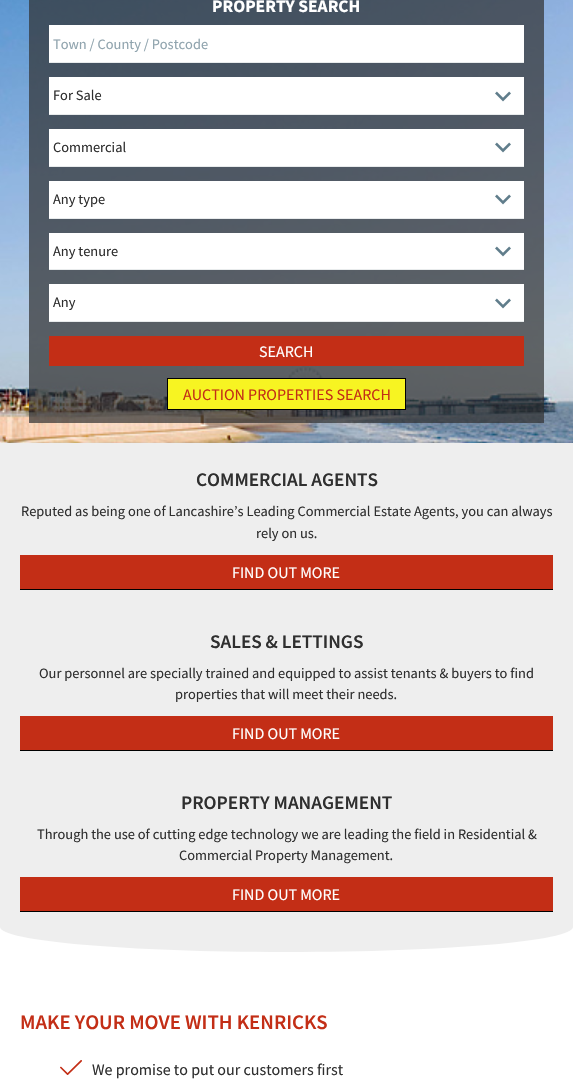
static SkFont makeFont(const char* family, int weight, float size, bool italic = false) {
  SkFontStyle style(weight, SkFontStyle::kNormal_Width,
    italic ? SkFontStyle::kItalic_Slant : SkFontStyle::kUpright_Slant);
  SkFont result(fontMgr->matchFamilyStyle(family, style), size);
  result.setSubpixel(true);
  return result;
}

static void text(SkCanvas* c, const char* s, float x, float y, const SkFont& font, SkColor color) {
  SkPaint ink(SkColor4f::FromColor(color));
  ink.setAntiAlias(true);
  c->drawString(s, x, y, font, ink);
}

static void box(SkCanvas* c, float l, float t, float r, float b, SkColor color) {
  SkPaint ink(SkColor4f::FromColor(color));
  ink.setAntiAlias(true);
  c->drawRect(SkRect::MakeLTRB(l, t, r, b), ink);
}

static void picture(SkCanvas* c, const char* path, float l, float t, float r, float b) {
  auto image = SkImages::DeferredFromEncodedData(SkData::MakeFromFileName(path));
  c->drawImageRect(image, SkRect::MakeLTRB(l, t, r, b), SkSamplingOptions());
}

void draw(SkCanvas* c) {
  SkPaint paint;
  paint.setAntiAlias(true);
  c->clear(0xffffffff);
  picture(c, "img_01.png", 0, 0, 573, 443);
  box(c, 29, 0, 544, 423, 0xb32f2f2f);
  SkFont face1 = makeFont("Source Sans Pro", 700, 17.5f);
  text(c, "PROPERTY SEARCH", 212, 12, face1, 0xffffffff);
  box(c, 49, 25, 524, 62, 0xffffffff);
  box(c, 49, 62, 524, 63, 0xffe8ebec);
  SkFont face2 = makeFont("Source Sans Pro", 400, 14.4f);
  text(c, "Town / County / Postcode", 53, 49, face2, 0xff90a4ae);
  box(c, 49, 77, 524, 114, 0xffffffff);
  picture(c, "img_02.png", 495, 91, 511, 102);
  box(c, 49, 114, 524, 115, 0xffe8ebec);
  text(c, "For Sale", 53, 100, face2, 0xff2f2f2f);
  box(c, 49, 129, 524, 166, 0xffffffff);
  picture(c, "img_02.png", 495, 142, 511, 153);
  box(c, 49, 166, 524, 167, 0xffe8ebec);
  text(c, "Commercial", 53, 152, face2, 0xff2f2f2f);
  box(c, 49, 181, 524, 218, 0xffffffff);
  picture(c, "img_02.png", 495, 194, 511, 205);
  box(c, 49, 218, 524, 219, 0xffe8ebec);
  text(c, "Any type", 53, 204, face2, 0xff2f2f2f);
  box(c, 49, 233, 524, 269, 0xffffffff);
  picture(c, "img_02.png", 495, 246, 511, 257);
  box(c, 49, 269, 524, 270, 0xffe8ebec);
  text(c, "Any tenure", 53, 256, face2, 0xff2f2f2f);
  box(c, 49, 284, 524, 321, 0xffffffff);
  picture(c, "img_02.png", 495, 298, 511, 309);
  box(c, 49, 321, 524, 322, 0xffe8ebec);
  text(c, "Any", 53, 307, face2, 0xff2f2f2f);
  box(c, 49, 336, 524, 366, 0xffc32e16);
  SkFont face3 = makeFont("Source Sans Pro", 400, 16);
  text(c, "SEARCH", 259, 357, face3, 0xffffffff);
  paint.setColor(0xfff7f422);
  c->drawRect(SkRect::MakeLTRB(167.5f, 378.5f, 405.5f, 409.5f), paint);
  paint.setStyle(SkPaint::kStroke_Style);
  paint.setStrokeWidth(1);
  paint.setColor(0xff000000);
  c->drawRect(SkRect::MakeLTRB(167.5f, 378.5f, 405.5f, 409.5f), paint);
  text(c, "AUCTION PROPERTIES SEARCH", 183, 400, face3, 0xffc32e16);
  box(c, 0, 443, 573, 902, 0xffeeeeee);
  SkFont face4 = makeFont("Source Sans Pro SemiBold", 600, 19.25f);
  text(c, "COMMERCIAL AGENTS", 196, 486, face4, 0xff2f2f2f);
  text(c, "Reputed as being one of Lancashire’s Leading Commercial Estate Agents, you can always", 21, 516, face2, 0xff2f2f2f);
  text(c, "rely on us.", 256, 538, face2, 0xff2f2f2f);
  box(c, 20, 555, 553, 589, 0xffc32e16);
  box(c, 20, 589, 553, 590, 0xff000000);
  text(c, "FIND OUT MORE", 232, 578, face3, 0xffffffff);
  text(c, "SALES & LETTINGS", 210, 648, face4, 0xff2f2f2f);
  text(c, "Our personnel are specially trained and equipped to assist tenants & buyers to find", 39, 678, face2, 0xff2f2f2f);
  text(c, "properties that will meet their needs.", 175, 699, face2, 0xff2f2f2f);
  box(c, 20, 716, 553, 750, 0xffc32e16);
  box(c, 20, 750, 553, 751, 0xff000000);
  text(c, "FIND OUT MORE", 232, 739, face3, 0xffffffff);
  text(c, "PROPERTY MANAGEMENT", 181, 809, face4, 0xff2f2f2f);
  text(c, "Through the use of cutting edge technology we are leading the field in Residential &", 37, 839, face2, 0xff2f2f2f);
  text(c, "Commercial Property Management.", 179, 860, face2, 0xff2f2f2f);
  paint.setStyle(SkPaint::kFill_Style);
  paint.setColor(0xffeeeeee);
  c->drawPath(SkPathBuilder().moveTo(0, 902).lineTo(573, 902).lineTo(573, 927).cubicTo(573, 941, 445, 952, 286, 952).cubicTo(128, 952, 0, 941, 0, 927).close().detach(), paint);
  box(c, 20, 877, 553, 911, 0xffc32e16);
  box(c, 20, 911, 553, 912, 0xff000000);
  text(c, "FIND OUT MORE", 232, 900, face3, 0xffffffff);
  SkFont face5 = makeFont("Source Sans Pro SemiBold", 600, 20.75f);
  text(c, "MAKE YOUR MOVE WITH KENRICKS", 20, 1029, face5, 0xffc32e16);
  picture(c, "img_03.png", 60, 1060, 82, 1075);
  text(c, "We promise to put our customers first", 92, 1075, face3, 0xff2f2f2f);
}
